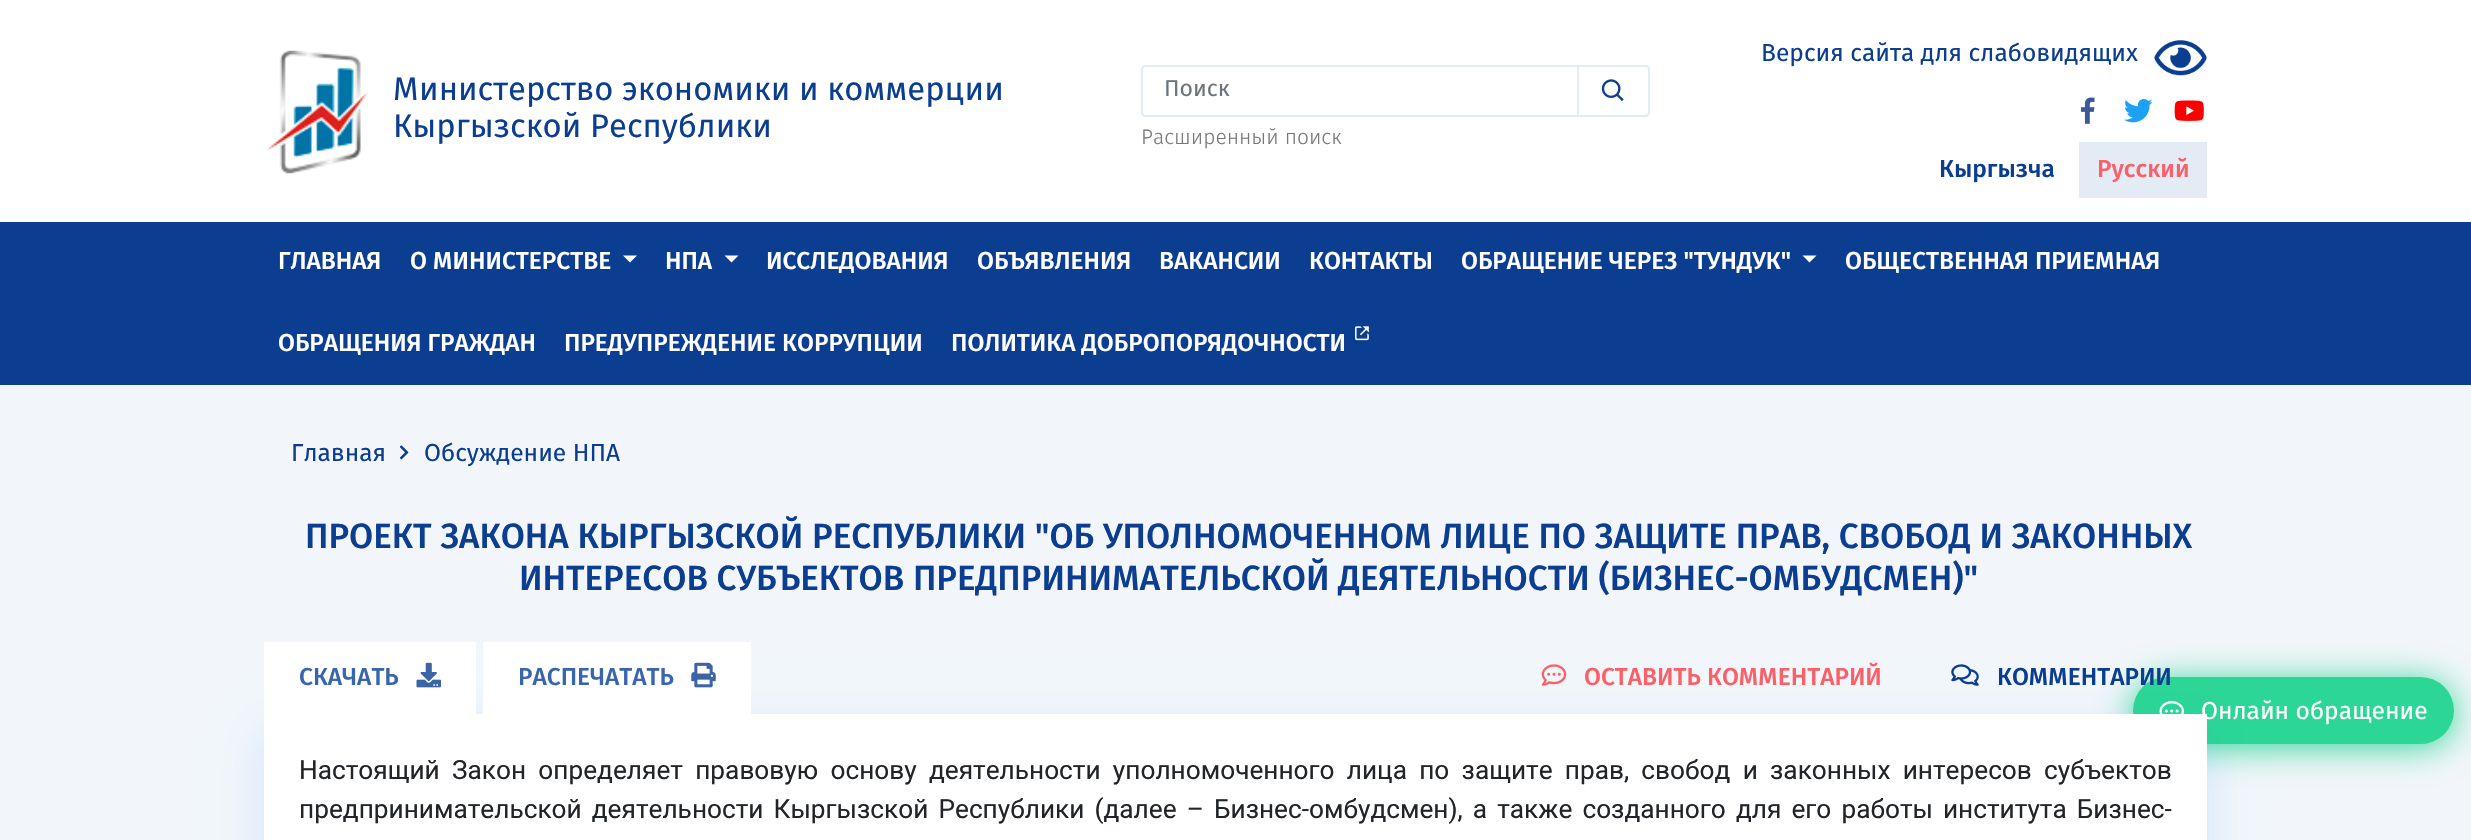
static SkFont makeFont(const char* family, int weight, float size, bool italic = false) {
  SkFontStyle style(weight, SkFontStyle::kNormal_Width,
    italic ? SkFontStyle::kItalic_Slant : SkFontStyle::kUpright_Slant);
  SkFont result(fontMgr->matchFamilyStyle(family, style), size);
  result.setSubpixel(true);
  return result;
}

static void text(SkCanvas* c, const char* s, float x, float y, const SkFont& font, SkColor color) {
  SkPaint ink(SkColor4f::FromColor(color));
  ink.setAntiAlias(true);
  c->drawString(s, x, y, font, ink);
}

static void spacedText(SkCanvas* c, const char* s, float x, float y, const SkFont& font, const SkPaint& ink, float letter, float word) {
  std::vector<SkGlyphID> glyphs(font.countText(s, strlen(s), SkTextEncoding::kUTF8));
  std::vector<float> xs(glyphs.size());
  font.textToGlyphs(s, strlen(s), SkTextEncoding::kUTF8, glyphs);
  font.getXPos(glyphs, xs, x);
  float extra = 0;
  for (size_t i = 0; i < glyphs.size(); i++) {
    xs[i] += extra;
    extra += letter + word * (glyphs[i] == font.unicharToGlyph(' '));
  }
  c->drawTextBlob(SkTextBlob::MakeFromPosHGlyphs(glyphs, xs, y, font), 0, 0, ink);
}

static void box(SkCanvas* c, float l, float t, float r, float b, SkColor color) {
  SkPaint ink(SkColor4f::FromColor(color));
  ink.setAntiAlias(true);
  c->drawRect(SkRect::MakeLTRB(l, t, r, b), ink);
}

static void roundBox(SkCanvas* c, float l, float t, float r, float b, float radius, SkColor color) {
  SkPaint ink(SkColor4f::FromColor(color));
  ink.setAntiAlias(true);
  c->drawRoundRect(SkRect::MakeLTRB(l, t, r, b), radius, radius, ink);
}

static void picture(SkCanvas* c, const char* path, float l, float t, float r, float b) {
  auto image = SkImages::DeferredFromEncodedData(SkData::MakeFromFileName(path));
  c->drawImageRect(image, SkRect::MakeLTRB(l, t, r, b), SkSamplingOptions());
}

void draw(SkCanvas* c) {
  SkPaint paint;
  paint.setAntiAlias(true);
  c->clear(0xffffffff);
  picture(c, "img_01.png", 266, 50, 368, 174);
  SkFont face1 = makeFont("Fira Sans", 400, 32.7f);
  text(c, "Министерство экономики и коммерции", 393, 100, face1, 0xff0b3d91);
  text(c, "Кыргызской Республики", 393, 137, face1, 0xff0b3d91);
  paint.setStyle(SkPaint::kStroke_Style);
  paint.setStrokeWidth(2);
  paint.setColor(0xffe3ecf5);
  c->drawPath(SkPathBuilder().moveTo(1578, 66).lineTo(1646, 66).cubicTo(1647.5f, 66, 1649, 67.5f, 1649, 69).lineTo(1649, 113).cubicTo(1649, 114.5f, 1647.5f, 116, 1646, 116).lineTo(1578, 116).close().detach(), paint);
  paint.setStyle(SkPaint::kFill_Style);
  paint.setColor(0xffffffff);
  c->drawPath(SkPathBuilder().moveTo(1145, 66).lineTo(1578, 66).lineTo(1578, 116).lineTo(1145, 116).cubicTo(1143.5f, 116, 1142, 114.5f, 1142, 113).lineTo(1142, 69).cubicTo(1142, 67.5f, 1143.5f, 66, 1145, 66).close().detach(), paint);
  paint.setStyle(SkPaint::kStroke_Style);
  paint.setColor(0xffe3ecf5);
  c->drawPath(SkPathBuilder().moveTo(1145, 66).lineTo(1578, 66).lineTo(1578, 116).lineTo(1145, 116).cubicTo(1143.5f, 116, 1142, 114.5f, 1142, 113).lineTo(1142, 69).cubicTo(1142, 67.5f, 1143.5f, 66, 1145, 66).close().detach(), paint);
  SkFont face2 = makeFont("Fira Sans", 400, 23);
  text(c, "Поиск", 1164, 96, face2, 0xff6c757d);
  picture(c, "img_02.png", 1601, 79, 1624, 101);
  SkFont face3 = makeFont("Fira Sans", 300, 21);
  text(c, "Расширенный поиск", 1141, 144, face3, 0xff777777);
  SkFont face4 = makeFont("Fira Sans", 400, 24.5f);
  text(c, "Версия сайта для слабовидящих", 1761, 61, face4, 0xff0b3d91);
  picture(c, "img_03.png", 2154, 40, 2207, 76);
  picture(c, "img_04.png", 2080, 97, 2095, 124);
  picture(c, "img_05.png", 2124, 99, 2153, 123);
  picture(c, "img_06.png", 2174, 100, 2204, 121);
  SkFont face5 = makeFont("Fira Sans", 500, 24.5f);
  text(c, "Кыргызча", 1939, 177, face5, 0xff0b3d91);
  box(c, 2079, 142, 2207, 198, 0xffe3ecf5);
  text(c, "Русский", 2097, 177, face5, 0xfffb5f68);
  box(c, 0, 222, 2471, 385, 0xff0b3d91);
  text(c, "ГЛАВНАЯ", 278, 269, face5, 0xffffffff);
  text(c, "О МИНИСТЕРСТВЕ", 410, 269, face5, 0xffffffff);
  paint.setStyle(SkPaint::kFill_Style);
  paint.setColor(0xffffffff);
  c->drawPath(SkPathBuilder().moveTo(623, 255.5f).lineTo(637, 255.5f).lineTo(630, 262.5f).close().detach(), paint);
  text(c, "НПА", 665, 269, face5, 0xffffffff);
  c->drawPath(SkPathBuilder().moveTo(724.5f, 255.5f).lineTo(738.5f, 255.5f).lineTo(731.5f, 262.5f).close().detach(), paint);
  text(c, "ИССЛЕДОВАНИЯ", 766, 269, face5, 0xffffffff);
  text(c, "ОБЪЯВЛЕНИЯ", 977, 269, face5, 0xffffffff);
  text(c, "ВАКАНСИИ", 1159, 269, face5, 0xffffffff);
  text(c, "КОНТАКТЫ", 1309, 269, face5, 0xffffffff);
  text(c, "ОБРАЩЕНИЕ ЧЕРЕЗ \"ТУНДУК\"", 1461, 269, face5, 0xffffffff);
  c->drawPath(SkPathBuilder().moveTo(1802.5f, 255.5f).lineTo(1816.5f, 255.5f).lineTo(1809.5f, 262.5f).close().detach(), paint);
  text(c, "ОБЩЕСТВЕННАЯ ПРИЕМНАЯ", 1845, 269, face5, 0xffffffff);
  text(c, "ОБРАЩЕНИЯ ГРАЖДАН", 278, 351, face5, 0xffffffff);
  text(c, "ПРЕДУПРЕЖДЕНИЕ КОРРУПЦИИ", 564, 351, face5, 0xffffffff);
  text(c, "ПОЛИТИКА ДОБРОПОРЯДОЧНОСТИ", 951, 351, face5, 0xffffffff);
  picture(c, "img_07.png", 1355, 326, 1369, 341);
  box(c, 0, 385, 2471, 840, 0xfff2f6fa);
  text(c, "Главная", 291, 461, face4, 0xff0b3d91);
  picture(c, "img_08.png", 399, 445, 409, 460);
  text(c, "Обсуждение НПА", 424, 461, face4, 0xff0b3d91);
  SkFont face6 = makeFont("Fira Sans", 500, 35);
  text(c, "ПРОЕКТ ЗАКОНА КЫРГЫЗСКОЙ РЕСПУБЛИКИ \"ОБ УПОЛНОМОЧЕННОМ ЛИЦЕ ПО ЗАЩИТЕ ПРАВ, СВОБОД И ЗАКОННЫХ", 305, 548, face6, 0xff0b3d91);
  text(c, "ИНТЕРЕСОВ СУБЪЕКТОВ ПРЕДПРИНИМАТЕЛЬСКОЙ ДЕЯТЕЛЬНОСТИ (БИЗНЕС-ОМБУДСМЕН)\"", 519, 590, face6, 0xff0b3d91);
  paint.setColor(0xff2cd696);
  paint.setMaskFilter(SkMaskFilter::MakeBlur(kNormal_SkBlurStyle, 17.5f));
  c->drawRoundRect(SkRect::MakeLTRB(2133, 681, 2454, 747), 33, 33, paint);
  paint.setMaskFilter(nullptr);
  roundBox(c, 2133, 677, 2454, 744, 33.5f, 0xff2cd696);
  picture(c, "img_13.png", 2159, 701, 2184, 714);
  paint.setColor(0x24007bff);
  paint.setMaskFilter(SkMaskFilter::MakeBlur(kNormal_SkBlurStyle, 22));
  c->drawRect(SkRect::MakeLTRB(264, 732, 2207, 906), paint);
  paint.setMaskFilter(nullptr);
  box(c, 264, 642, 476, 714, 0xffffffff);
  text(c, "СКАЧАТЬ", 299, 685, face5, 0xff3965ae);
  picture(c, "img_09.png", 416, 662, 441, 688);
  box(c, 483, 642, 751, 714, 0xffffffff);
  text(c, "РАСПЕЧАТАТЬ", 518, 685, face5, 0xff3965ae);
  picture(c, "img_10.png", 691, 662, 716, 688);
  picture(c, "img_11.png", 1541, 664, 1567, 686);
  text(c, "ОСТАВИТЬ КОММЕНТАРИЙ", 1584, 685, face5, 0xfffb5f68);
  picture(c, "img_12.png", 1951, 664, 1979, 686);
  text(c, "КОММЕНТАРИИ", 1997, 685, face5, 0xff0b3d91);
  box(c, 264, 714, 2207, 840, 0xffffffff);
  SkFont face7 = makeFont("Roboto", 400, 26.25f);
  paint.setColor(0xff212529);
  spacedText(c, "Настоящий Закон определяет правовую основу деятельности уполномоченного лица по защите прав, свобод и законных интересов субъектов", 299, 779, face7, paint, 0, 5.75f);
  spacedText(c, "предпринимательской деятельности Кыргызской Республики (далее – Бизнес-омбудсмен), а также созданного для его работы института Бизнес-", 299, 818, face7, paint, 0, 3.6f);
  text(c, "Онлайн обращение", 2201, 719, face4, 0xffffffff);
}
